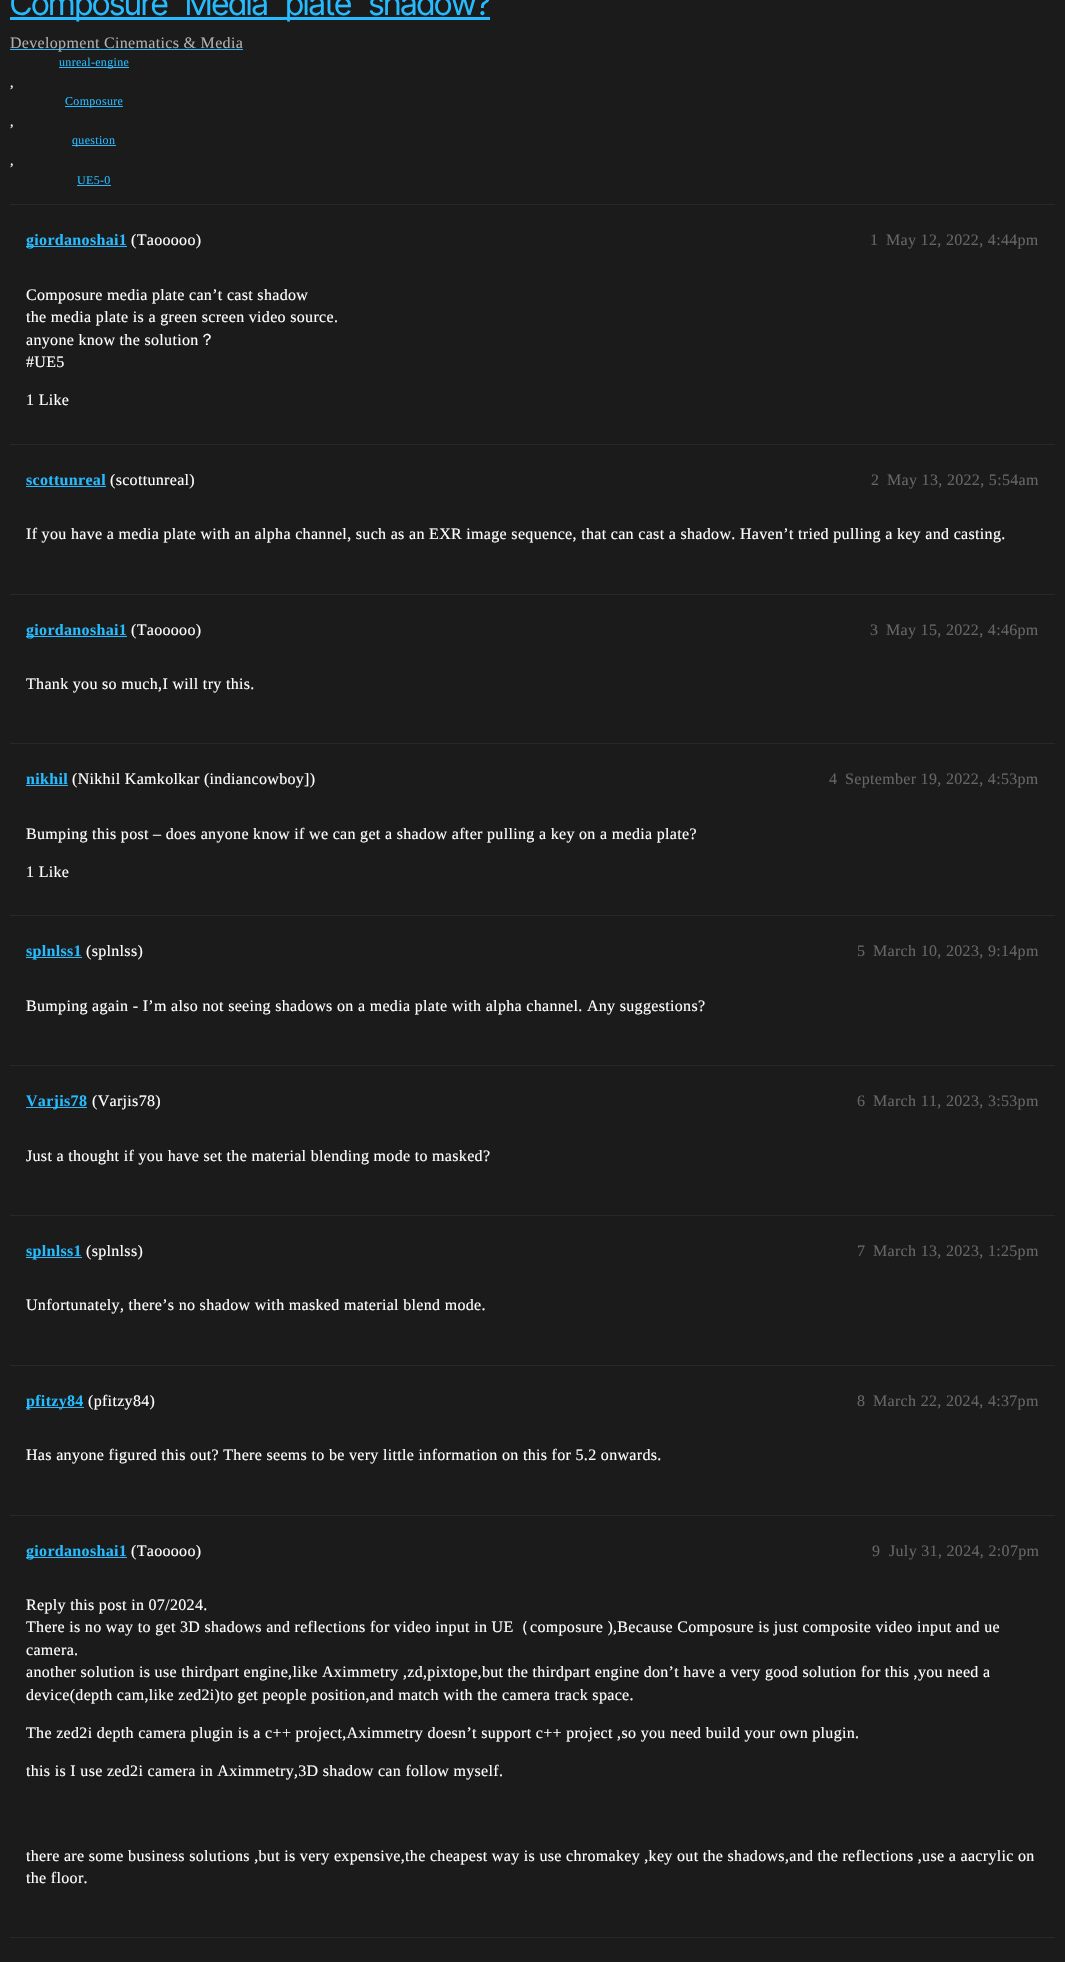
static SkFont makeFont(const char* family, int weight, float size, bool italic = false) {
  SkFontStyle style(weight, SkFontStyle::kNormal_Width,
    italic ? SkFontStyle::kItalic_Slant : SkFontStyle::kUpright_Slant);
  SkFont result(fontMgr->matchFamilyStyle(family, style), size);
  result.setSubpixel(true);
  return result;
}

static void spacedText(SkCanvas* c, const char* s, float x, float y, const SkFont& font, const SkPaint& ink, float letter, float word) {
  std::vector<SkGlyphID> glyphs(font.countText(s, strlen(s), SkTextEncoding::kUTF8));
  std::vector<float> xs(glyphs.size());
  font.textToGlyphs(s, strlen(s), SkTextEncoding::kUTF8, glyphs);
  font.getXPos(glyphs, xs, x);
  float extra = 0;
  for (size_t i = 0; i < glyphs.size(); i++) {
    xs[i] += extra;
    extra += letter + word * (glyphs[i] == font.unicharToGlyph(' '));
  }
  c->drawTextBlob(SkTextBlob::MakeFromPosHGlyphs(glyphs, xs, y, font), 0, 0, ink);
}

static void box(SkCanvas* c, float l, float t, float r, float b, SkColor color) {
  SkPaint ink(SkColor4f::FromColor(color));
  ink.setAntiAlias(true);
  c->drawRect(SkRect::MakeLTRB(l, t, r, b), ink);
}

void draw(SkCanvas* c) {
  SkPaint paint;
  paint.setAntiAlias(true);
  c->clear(0xff1b1b1b);
  box(c, 10, 17, 490, 20, 0xff26bbff);
  SkFont face1 = makeFont("Inter Tight", 400, 32.2f);
  paint.setColor(0xff26bbff);
  spacedText(c, "Composure Media plate shadow?", 10, 15, face1, paint, -0.5f, 10.5f);
  box(c, 10, 49, 243, 50, 0xff26bbff);
  SkFont face2 = makeFont("Liberation Serif", 400, 16);
  paint.setColor(0xffafafb0);
  spacedText(c, "Development", 10, 48, face2, paint, 0.32f, 0);
  spacedText(c, "Cinematics & Media", 104, 48, face2, paint, 0.32f, 0);
  box(c, 59, 67, 129, 68, 0xff26bbff);
  SkFont face3 = makeFont("Liberation Serif", 400, 12);
  paint.setColor(0xff26bbff);
  spacedText(c, "unreal-engine", 59, 66, face3, paint, 0.32f, 0);
  SkFont face4 = makeFont("Liberation Serif", 400, 14);
  paint.setColor(0xffffffff);
  spacedText(c, ",", 10, 87, face4, paint, 0.32f, 0);
  box(c, 65, 106, 123, 107, 0xff26bbff);
  paint.setColor(0xff26bbff);
  spacedText(c, "Composure", 65, 105, face3, paint, 0.32f, 0);
  paint.setColor(0xffffffff);
  spacedText(c, ",", 10, 126, face4, paint, 0.32f, 0);
  box(c, 72, 145, 116, 146, 0xff26bbff);
  paint.setColor(0xff26bbff);
  spacedText(c, "question", 72, 144, face3, paint, 0.32f, 0);
  paint.setColor(0xffffffff);
  spacedText(c, ",", 10, 165, face4, paint, 0.32f, 0);
  paint.setColor(0xff26bbff);
  spacedText(c, "UE5-0", 77, 184, face3, paint, 0.32f, 0);
  box(c, 77, 185, 111, 186, 0xff26bbff);
  box(c, 10, 204, 1055, 205, 0xff28282c);
  box(c, 26, 246, 127, 247, 0xff26bbff);
  SkFont face5 = makeFont("Liberation Serif", 700, 16);
  spacedText(c, "giordanoshai1", 26, 245, face5, paint, 0.32f, 0);
  paint.setColor(0xffffffff);
  spacedText(c, "(Taooooo)", 131, 245, face2, paint, 0.32f, 0);
  paint.setColor(0xff666666);
  spacedText(c, "1", 870, 245, face2, paint, 0.32f, 0);
  spacedText(c, "May 12, 2022, 4:44pm", 886, 245, face2, paint, 0.32f, 0);
  paint.setColor(0xffffffff);
  spacedText(c, "Composure media plate can’t cast shadow", 26, 300, face2, paint, 0.32f, 0);
  spacedText(c, "the media plate is a green screen video source.", 26, 322, face2, paint, 0.32f, 0);
  spacedText(c, "anyone know the solution", 26, 345, face2, paint, 0.32f, 0);
  SkFont face6 = makeFont("WenQuanYi Zen Hei", 500, 16);
  spacedText(c, "？", 199, 345, face6, paint, 0.32f, 0);
  spacedText(c, "#UE5", 26, 367, face2, paint, 0.32f, 0);
  spacedText(c, "1 Like", 26, 405, face2, paint, 0.32f, 0);
  box(c, 10, 444, 1055, 445, 0xff28282c);
  paint.setColor(0xff26bbff);
  spacedText(c, "scottunreal", 26, 485, face5, paint, 0.32f, 0);
  box(c, 26, 486, 106, 487, 0xff26bbff);
  paint.setColor(0xffffffff);
  spacedText(c, "(scottunreal)", 110, 485, face2, paint, 0.32f, 0);
  paint.setColor(0xff666666);
  spacedText(c, "2", 871, 485, face2, paint, 0.32f, 0);
  spacedText(c, "May 13, 2022, 5:54am", 887, 485, face2, paint, 0.32f, 0);
  paint.setColor(0xffffffff);
  spacedText(c, "If you have a media plate with an alpha channel, such as an EXR image sequence, that can cast a shadow. Haven’t tried pulling a key and casting.", 26, 539, face2, paint, 0.32f, 0);
  box(c, 10, 594, 1055, 595, 0xff28282c);
  box(c, 26, 636, 127, 637, 0xff26bbff);
  paint.setColor(0xff26bbff);
  spacedText(c, "giordanoshai1", 26, 635, face5, paint, 0.32f, 0);
  paint.setColor(0xffffffff);
  spacedText(c, "(Taooooo)", 131, 635, face2, paint, 0.32f, 0);
  paint.setColor(0xff666666);
  spacedText(c, "3", 870, 635, face2, paint, 0.32f, 0);
  spacedText(c, "May 15, 2022, 4:46pm", 886, 635, face2, paint, 0.32f, 0);
  paint.setColor(0xffffffff);
  spacedText(c, "Thank you so much,I will try this.", 26, 689, face2, paint, 0.32f, 0);
  box(c, 10, 743, 1055, 744, 0xff28282c);
  paint.setColor(0xff26bbff);
  spacedText(c, "nikhil", 26, 784, face5, paint, 0.32f, 0);
  box(c, 26, 785, 68, 786, 0xff26bbff);
  paint.setColor(0xffffffff);
  spacedText(c, "(Nikhil Kamkolkar (indiancowboy])", 72, 784, face2, paint, 0.32f, 0);
  paint.setColor(0xff666666);
  spacedText(c, "4", 829, 784, face2, paint, 0.32f, 0);
  spacedText(c, "September 19, 2022, 4:53pm", 845, 784, face2, paint, 0.32f, 0);
  paint.setColor(0xffffffff);
  spacedText(c, "Bumping this post – does anyone know if we can get a shadow after pulling a key on a media plate?", 26, 839, face2, paint, 0.32f, 0);
  spacedText(c, "1 Like", 26, 877, face2, paint, 0.32f, 0);
  box(c, 10, 915, 1055, 916, 0xff28282c);
  box(c, 26, 957, 82, 958, 0xff26bbff);
  paint.setColor(0xff26bbff);
  spacedText(c, "splnlss1", 26, 956, face5, paint, 0.32f, 0);
  paint.setColor(0xffffffff);
  spacedText(c, "(splnlss)", 86, 956, face2, paint, 0.32f, 0);
  paint.setColor(0xff666666);
  spacedText(c, "5", 857, 956, face2, paint, 0.32f, 0);
  spacedText(c, "March 10, 2023, 9:14pm", 873, 956, face2, paint, 0.32f, 0);
  paint.setColor(0xffffffff);
  spacedText(c, "Bumping again - I’m also not seeing shadows on a media plate with alpha channel. Any suggestions?", 26, 1011, face2, paint, 0.32f, 0);
  box(c, 10, 1065, 1055, 1066, 0xff28282c);
  box(c, 26, 1107, 87, 1108, 0xff26bbff);
  paint.setColor(0xff26bbff);
  spacedText(c, "Varjis78", 26, 1106, face5, paint, 0.32f, 0);
  paint.setColor(0xffffffff);
  spacedText(c, "(Varjis78)", 92, 1106, face2, paint, 0.32f, 0);
  paint.setColor(0xff666666);
  spacedText(c, "6", 857, 1106, face2, paint, 0.32f, 0);
  spacedText(c, "March 11, 2023, 3:53pm", 873, 1106, face2, paint, 0.32f, 0);
  paint.setColor(0xffffffff);
  spacedText(c, "Just a thought if you have set the material blending mode to masked?", 26, 1161, face2, paint, 0.32f, 0);
  box(c, 10, 1215, 1055, 1216, 0xff28282c);
  box(c, 26, 1257, 82, 1258, 0xff26bbff);
  paint.setColor(0xff26bbff);
  spacedText(c, "splnlss1", 26, 1256, face5, paint, 0.32f, 0);
  paint.setColor(0xffffffff);
  spacedText(c, "(splnlss)", 86, 1256, face2, paint, 0.32f, 0);
  paint.setColor(0xff666666);
  spacedText(c, "7", 857, 1256, face2, paint, 0.32f, 0);
  spacedText(c, "March 13, 2023, 1:25pm", 873, 1256, face2, paint, 0.32f, 0);
  paint.setColor(0xffffffff);
  spacedText(c, "Unfortunately, there’s no shadow with masked material blend mode.", 26, 1310, face2, paint, 0.32f, 0);
  box(c, 10, 1365, 1055, 1366, 0xff28282c);
  box(c, 26, 1407, 84, 1408, 0xff26bbff);
  paint.setColor(0xff26bbff);
  spacedText(c, "pfitzy84", 26, 1406, face5, paint, 0.32f, 0);
  paint.setColor(0xffffffff);
  spacedText(c, "(pfitzy84)", 88, 1406, face2, paint, 0.32f, 0);
  paint.setColor(0xff666666);
  spacedText(c, "8", 857, 1406, face2, paint, 0.32f, 0);
  spacedText(c, "March 22, 2024, 4:37pm", 873, 1406, face2, paint, 0.32f, 0);
  paint.setColor(0xffffffff);
  spacedText(c, "Has anyone figured this out? There seems to be very little information on this for 5.2 onwards.", 26, 1460, face2, paint, 0.32f, 0);
  box(c, 10, 1515, 1055, 1516, 0xff28282c);
  box(c, 26, 1557, 127, 1558, 0xff26bbff);
  paint.setColor(0xff26bbff);
  spacedText(c, "giordanoshai1", 26, 1556, face5, paint, 0.32f, 0);
  paint.setColor(0xffffffff);
  spacedText(c, "(Taooooo)", 131, 1556, face2, paint, 0.32f, 0);
  paint.setColor(0xff666666);
  spacedText(c, "9", 872, 1556, face2, paint, 0.32f, 0);
  spacedText(c, "July 31, 2024, 2:07pm", 889, 1556, face2, paint, 0.32f, 0);
  paint.setColor(0xffffffff);
  spacedText(c, "Reply this post in 07/2024.", 26, 1610, face2, paint, 0.32f, 0);
  spacedText(c, "There is no way to get 3D shadows and reflections for video input in UE", 26, 1632, face2, paint, 0.32f, 0);
  spacedText(c, "（", 513, 1632, face6, paint, 0.32f, 0);
  spacedText(c, "composure ),Because Composure is just composite video input and ue", 530, 1632, face2, paint, 0.32f, 0);
  spacedText(c, "camera.", 26, 1655, face2, paint, 0.32f, 0);
  spacedText(c, "another solution is use thirdpart engine,like Aximmetry ,zd,pixtope,but the thirdpart engine don’t have a very good solution for this ,you need a", 26, 1677, face2, paint, 0.32f, 0);
  spacedText(c, "device(depth cam,like zed2i)to get people position,and match with the camera track space.", 26, 1700, face2, paint, 0.32f, 0);
  spacedText(c, "The zed2i depth camera plugin is a c++ project,Aximmetry doesn’t support c++ project ,so you need build your own plugin.", 26, 1738, face2, paint, 0.32f, 0);
  spacedText(c, "this is I use zed2i camera in Aximmetry,3D shadow can follow myself.", 26, 1776, face2, paint, 0.32f, 0);
  spacedText(c, "there are some business solutions ,but is very expensive,the cheapest way is use chromakey ,key out the shadows,and the reflections ,use a aacrylic on", 26, 1861, face2, paint, 0.32f, 0);
  spacedText(c, "the floor.", 26, 1883, face2, paint, 0.32f, 0);
  box(c, 10, 1937, 1055, 1938, 0xff28282c);
}
